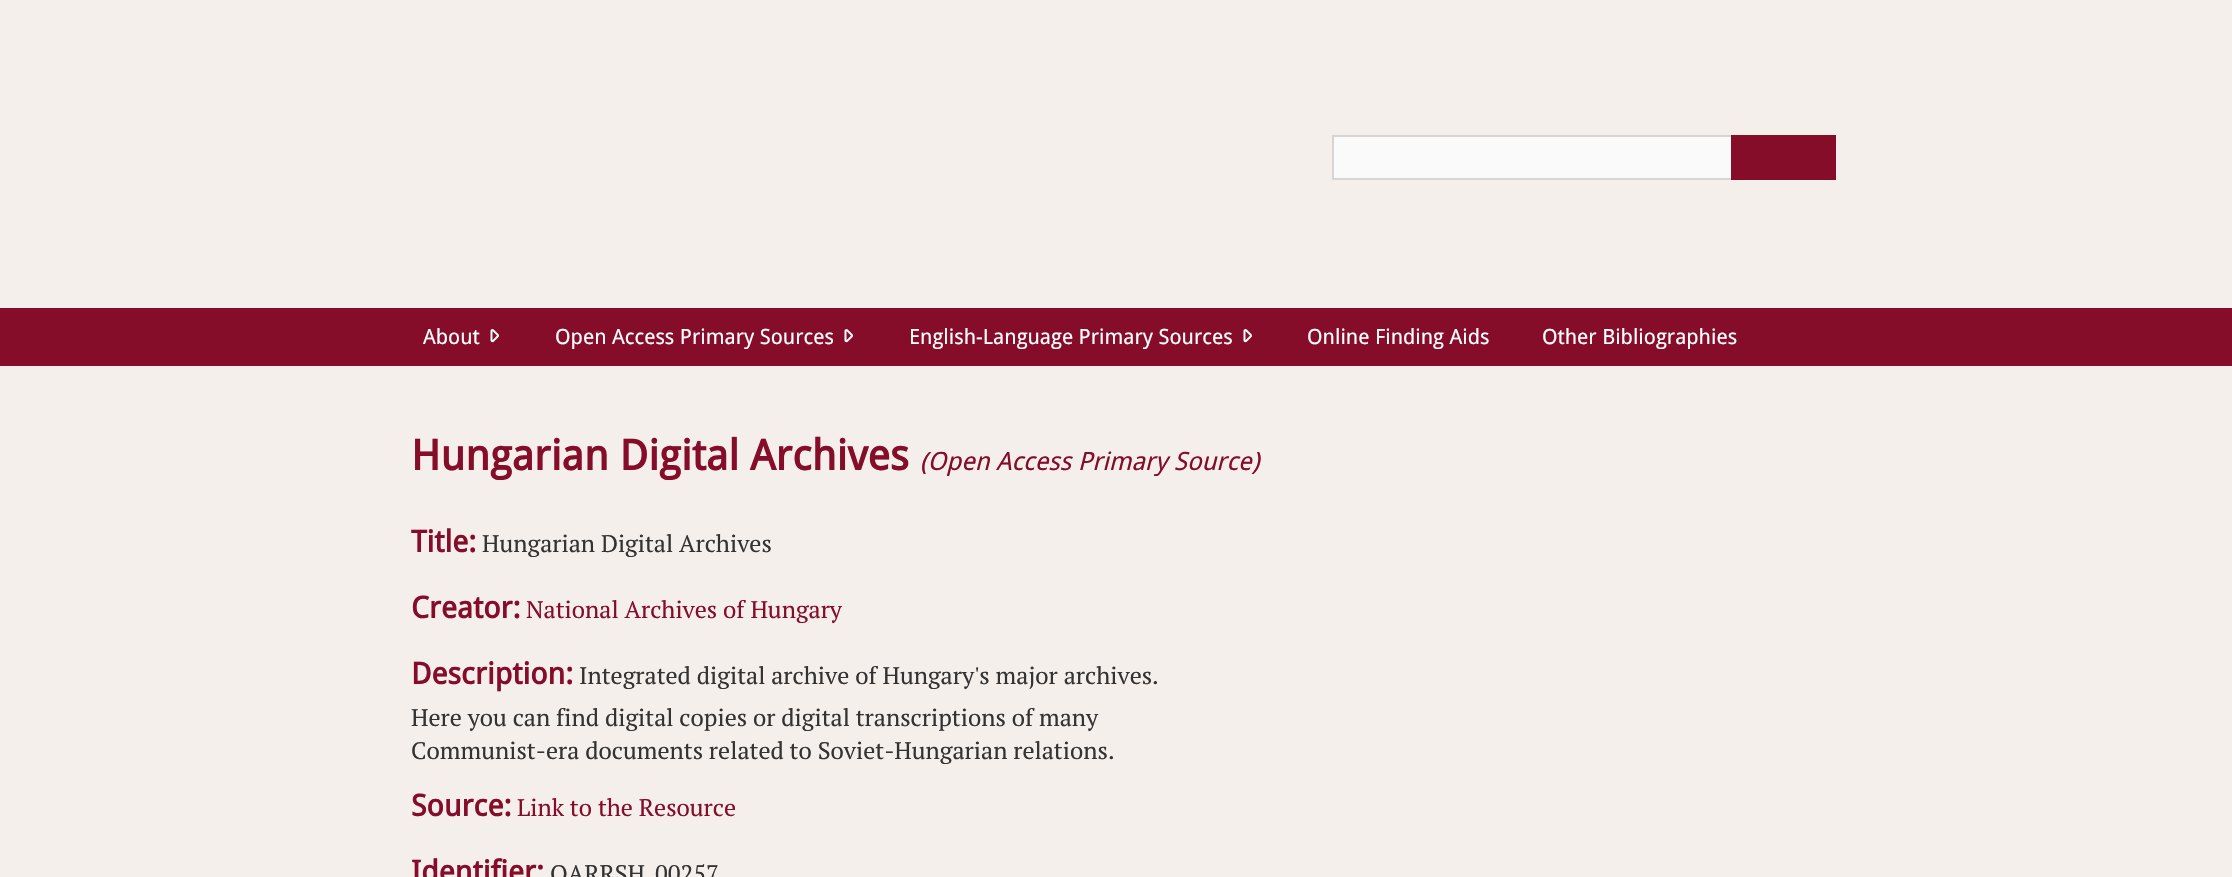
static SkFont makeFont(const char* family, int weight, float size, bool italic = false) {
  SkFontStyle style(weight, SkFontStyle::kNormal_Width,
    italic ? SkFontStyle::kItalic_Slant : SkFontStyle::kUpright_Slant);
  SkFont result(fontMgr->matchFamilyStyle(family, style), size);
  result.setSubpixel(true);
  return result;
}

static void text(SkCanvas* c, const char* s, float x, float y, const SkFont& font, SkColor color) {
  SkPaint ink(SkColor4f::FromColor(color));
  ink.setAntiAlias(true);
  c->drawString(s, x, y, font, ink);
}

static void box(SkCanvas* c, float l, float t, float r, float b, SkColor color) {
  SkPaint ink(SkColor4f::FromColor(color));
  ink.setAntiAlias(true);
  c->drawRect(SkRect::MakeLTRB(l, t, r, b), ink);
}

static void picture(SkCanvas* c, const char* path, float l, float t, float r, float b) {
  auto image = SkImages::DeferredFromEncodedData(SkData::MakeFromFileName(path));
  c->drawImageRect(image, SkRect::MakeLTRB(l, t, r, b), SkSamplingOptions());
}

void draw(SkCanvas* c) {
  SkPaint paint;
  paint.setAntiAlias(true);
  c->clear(0xfff5efeb);
  box(c, 1334, 137, 1731, 178, 0xfffafafa);
  paint.setStyle(SkPaint::kStroke_Style);
  paint.setStrokeWidth(2);
  paint.setColor(0xffd5d5d5);
  c->drawRect(SkRect::MakeLTRB(1333, 136, 1835, 179), paint);
  box(c, 1731, 135, 1836, 180, 0xff850d2a);
  box(c, 0, 308, 2232, 366, 0xff850d2a);
  SkFont face1 = makeFont("Droid Sans", 400, 21);
  text(c, "About", 423, 344, face1, 0xffffffff);
  picture(c, "img_01.png", 490, 329, 499, 343);
  text(c, "Open Access Primary Sources", 555, 344, face1, 0xffffffff);
  picture(c, "img_01.png", 844, 329, 853, 343);
  text(c, "English-Language Primary Sources", 909, 344, face1, 0xffffffff);
  picture(c, "img_01.png", 1243, 329, 1252, 343);
  text(c, "Online Finding Aids", 1307, 344, face1, 0xffffffff);
  text(c, "Other Bibliographies", 1542, 344, face1, 0xffffffff);
  SkFont face2 = makeFont("Droid Sans", 700, 42);
  text(c, "Hungarian Digital Archives", 411, 470, face2, 0xff850d2a);
  SkFont face3 = makeFont("Droid Sans", 400, 25.25f, true);
  text(c, "(Open Access Primary Source)", 920, 470, face3, 0xff850d2a);
  SkFont face4 = makeFont("Droid Sans", 700, 30);
  text(c, "Title:", 411, 552, face4, 0xff850d2a);
  SkFont face5 = makeFont("PT Serif", 400, 24);
  text(c, "Hungarian Digital Archives", 482, 552, face5, 0xff333333);
  text(c, "Creator:", 411, 618, face4, 0xff850d2a);
  text(c, "National Archives of Hungary", 526, 618, face5, 0xff850d2a);
  text(c, "Description:", 411, 684, face4, 0xff850d2a);
  text(c, "Integrated digital archive of Hungary's major archives.", 579, 684, face5, 0xff333333);
  text(c, "Here you can find digital copies or digital transcriptions of many", 411, 726, face5, 0xff333333);
  text(c, "Communist-era documents related to Soviet-Hungarian relations.", 411, 759, face5, 0xff333333);
  text(c, "Source:", 411, 816, face4, 0xff850d2a);
  text(c, "Link to the Resource", 517, 816, face5, 0xff850d2a);
  text(c, "Identifier:", 411, 882, face4, 0xff850d2a);
  text(c, "OARRSH_00257", 550, 882, face5, 0xff333333);
}
